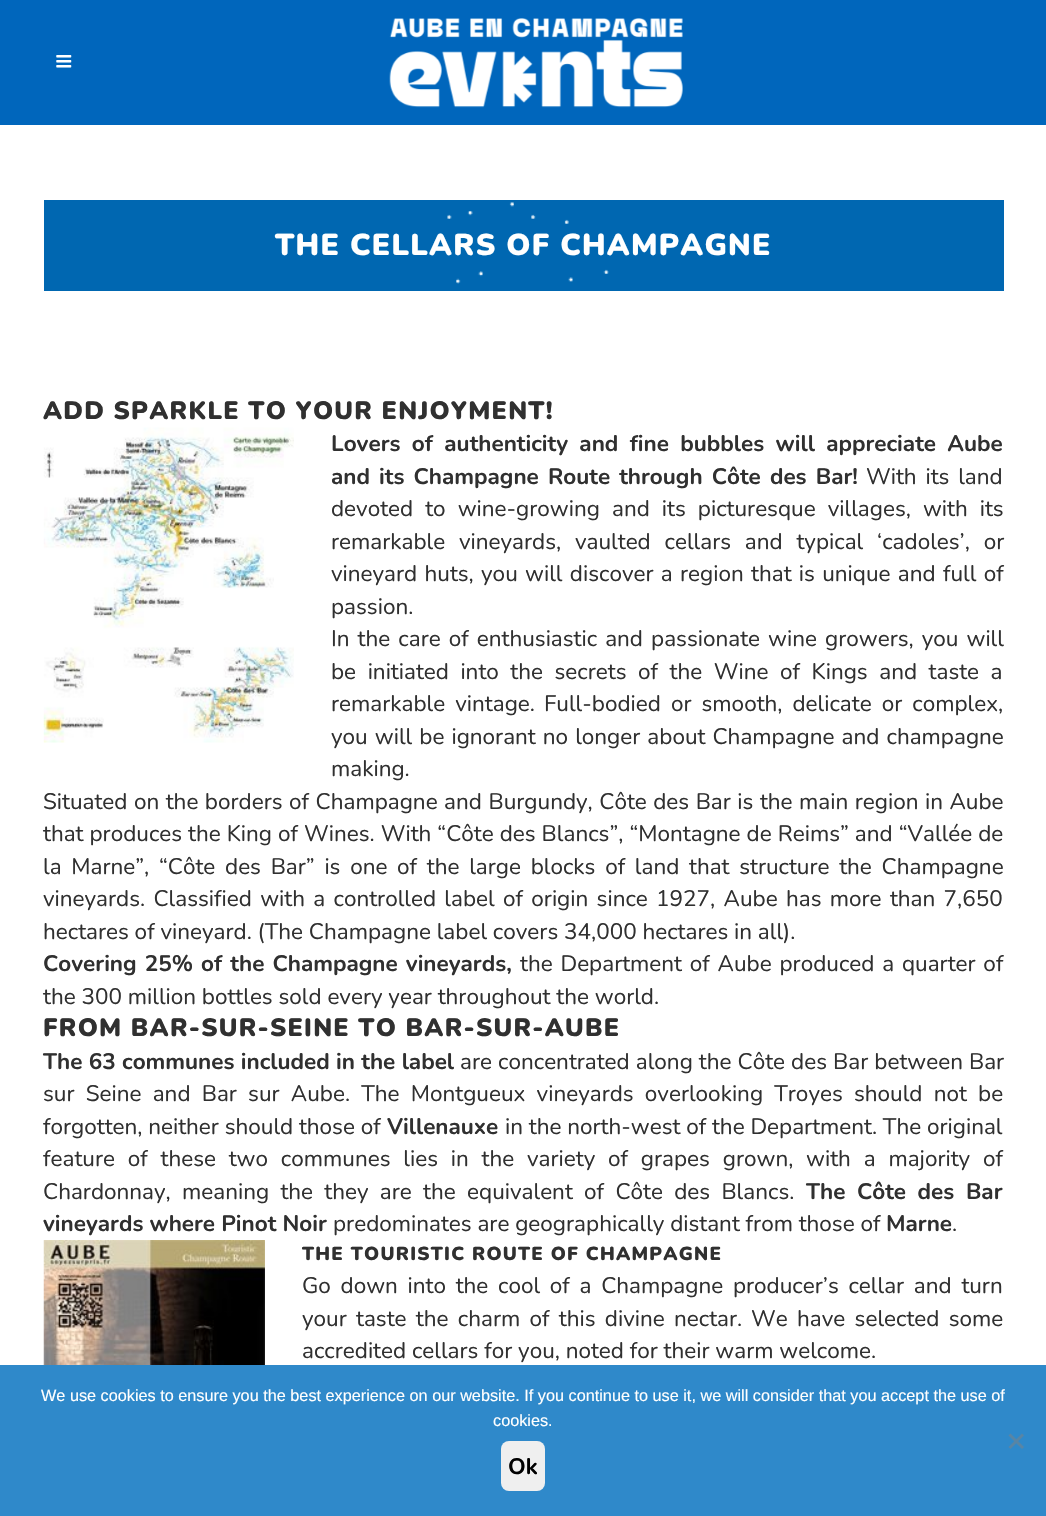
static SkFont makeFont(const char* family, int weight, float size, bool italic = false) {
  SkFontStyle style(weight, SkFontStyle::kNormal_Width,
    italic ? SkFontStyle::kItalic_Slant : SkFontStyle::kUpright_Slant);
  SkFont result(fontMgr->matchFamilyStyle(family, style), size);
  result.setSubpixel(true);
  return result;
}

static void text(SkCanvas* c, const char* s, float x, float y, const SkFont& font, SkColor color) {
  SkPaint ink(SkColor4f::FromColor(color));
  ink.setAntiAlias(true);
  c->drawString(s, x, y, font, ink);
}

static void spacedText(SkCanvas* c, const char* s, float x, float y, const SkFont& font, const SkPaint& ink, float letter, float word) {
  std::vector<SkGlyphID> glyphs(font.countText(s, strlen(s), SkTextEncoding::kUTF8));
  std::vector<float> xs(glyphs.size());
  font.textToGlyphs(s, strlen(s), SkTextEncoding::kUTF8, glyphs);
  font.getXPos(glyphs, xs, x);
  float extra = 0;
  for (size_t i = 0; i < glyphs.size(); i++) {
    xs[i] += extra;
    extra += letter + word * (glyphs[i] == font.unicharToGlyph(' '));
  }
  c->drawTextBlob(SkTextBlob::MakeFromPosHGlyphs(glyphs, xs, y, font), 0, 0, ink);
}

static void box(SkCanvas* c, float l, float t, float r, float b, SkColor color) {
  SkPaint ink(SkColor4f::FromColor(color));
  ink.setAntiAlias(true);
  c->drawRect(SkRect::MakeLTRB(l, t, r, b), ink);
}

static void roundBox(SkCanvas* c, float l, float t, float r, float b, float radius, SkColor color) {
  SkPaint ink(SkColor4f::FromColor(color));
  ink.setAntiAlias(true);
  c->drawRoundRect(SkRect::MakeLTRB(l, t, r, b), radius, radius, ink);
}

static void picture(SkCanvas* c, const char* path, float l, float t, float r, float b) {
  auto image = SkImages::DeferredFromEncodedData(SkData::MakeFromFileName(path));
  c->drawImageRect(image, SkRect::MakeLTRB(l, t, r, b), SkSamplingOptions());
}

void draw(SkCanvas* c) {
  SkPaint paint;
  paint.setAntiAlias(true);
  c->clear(0xffffffff);
  box(c, 0, 0, 1046, 125, 0xff0066bc);
  picture(c, "img_01.png", 56, 55, 72, 68);
  picture(c, "img_02.png", 389, 18, 683, 108);
  box(c, 44, 200, 1004, 291, 0xff0067b1);
  picture(c, "img_03.png", 447, 202, 609, 284);
  SkFont face1 = makeFont("Nunito", 900, 30);
  paint.setColor(0xffffffff);
  spacedText(c, "THE CELLARS OF CHAMPAGNE", 275, 255, face1, paint, 1.25f, 0);
  SkFont face2 = makeFont("Nunito", 900, 25);
  paint.setColor(0xff303030);
  spacedText(c, "ADD SPARKLE TO YOUR ENJOYMENT!", 43, 419, face2, paint, 1.25f, 0);
  picture(c, "img_04.png", 43, 427, 294, 743);
  SkFont face3 = makeFont("Nunito", 700, 22.5f);
  spacedText(c, "Lovers of authenticity and fine bubbles will appreciate Aube", 331, 451, face3, paint, 0, 5.25f);
  spacedText(c, "and its Champagne Route through Côte des Bar!", 331, 484, face3, paint, 0, 3);
  SkFont face4 = makeFont("Nunito", 400, 22.5f);
  spacedText(c, "With its land", 866, 484, face4, paint, 0, 3);
  spacedText(c, "devoted to wine-growing and its picturesque villages, with its", 331, 516, face4, paint, 0, 6.25f);
  spacedText(c, "remarkable vineyards, vaulted cellars and typical ‘cadoles’, or", 331, 549, face4, paint, 0, 8);
  spacedText(c, "vineyard huts, you will discover a region that is unique and full of", 331, 581, face4, paint, 0, 1.5f);
  text(c, "passion.", 331, 614, face4, 0xff303030);
  spacedText(c, "In the care of enthusiastic and passionate wine growers, you will", 331, 646, face4, paint, 0, 2.25f);
  spacedText(c, "be initiated into the secrets of the Wine of Kings and taste a", 331, 679, face4, paint, 0, 5.75f);
  spacedText(c, "remarkable vintage.", 331, 711, face4, paint, 0, 4.25f);
  spacedText(c, "Full-bodied or smooth, delicate or complex,", 544, 711, face4, paint, 0, 4.25f);
  spacedText(c, "you will be ignorant no longer about Champagne and champagne", 331, 744, face4, paint, 0, 1.25f);
  text(c, "making.", 331, 776, face4, 0xff303030);
  spacedText(c, "Situated on the borders of Champagne and Burgundy, Côte des Bar is the main region in Aube", 43, 809, face4, paint, 0, 0.7f);
  spacedText(c, "that produces the King of Wines. With “Côte des Blancs”, “Montagne de Reims” and “Vallée de", 43, 841, face4, paint, 0, 0.2f);
  spacedText(c, "la Marne”, “Côte des Bar” is one of the large blocks of land that structure the Champagne", 43, 874, face4, paint, 0, 3.9f);
  spacedText(c, "vineyards. Classified with a controlled label of origin since 1927, Aube has more than 7,650", 43, 906, face4, paint, 0, 2.5f);
  text(c, "hectares of vineyard. (The Champagne label covers 34,000 hectares in all).", 43, 939, face4, 0xff303030);
  spacedText(c, "Covering 25% of the Champagne vineyards,", 43, 971, face3, paint, 0, 2);
  spacedText(c, "the Department of Aube produced a quarter of", 520, 971, face4, paint, 0, 2);
  text(c, "the 300 million bottles sold every year throughout the world.", 43, 1004, face4, 0xff303030);
  spacedText(c, "FROM BAR-SUR-SEINE TO BAR-SUR-AUBE", 43, 1036, face2, paint, 1.25f, 0);
  spacedText(c, "The 63 communes included in the label", 43, 1069, face3, paint, 0, 0.25f);
  spacedText(c, "are concentrated along the Côte des Bar between Bar", 460, 1069, face4, paint, 0, 0.25f);
  spacedText(c, "sur Seine and Bar sur Aube. The Montgueux vineyards overlooking Troyes should not be", 43, 1101, face4, paint, 0, 5.4f);
  text(c, "forgotten, neither should those of", 43, 1134, face4, 0xff303030);
  text(c, "Villenauxe", 387, 1134, face3, 0xff303030);
  text(c, "in the north-west of the Department. The original", 505, 1134, face4, 0xff303030);
  spacedText(c, "feature of these two communes lies in the variety of grapes grown, with a majority of", 43, 1166, face4, paint, 0, 7);
  spacedText(c, "Chardonnay, meaning the they are the equivalent of Côte des Blancs.", 43, 1199, face4, paint, 0, 5.5f);
  spacedText(c, "The Côte des Bar", 806, 1199, face3, paint, 0, 5.5f);
  text(c, "vineyards where Pinot Noir", 43, 1231, face3, 0xff303030);
  text(c, "predominates are geographically distant from those of", 333, 1231, face4, 0xff303030);
  text(c, "Marne", 886, 1231, face3, 0xff303030);
  text(c, ".", 952, 1231, face4, 0xff303030);
  picture(c, "img_05.png", 43, 1240, 265, 1365);
  SkFont face5 = makeFont("Nunito", 900, 18.75f);
  spacedText(c, "THE TOURISTIC ROUTE OF CHAMPAGNE", 302, 1260, face5, paint, 1.25f, 0);
  spacedText(c, "Go down into the cool of a Champagne producer’s cellar and turn", 302, 1293, face4, paint, 0, 3.9f);
  spacedText(c, "your taste the charm of this divine nectar.", 302, 1326, face4, paint, 0, 3.5f);
  spacedText(c, "We have selected some", 751, 1326, face4, paint, 0, 3.5f);
  text(c, "accredited cellars for you, noted for their warm welcome.", 302, 1358, face4, 0xff303030);
  box(c, 0, 1365, 1046, 1516, 0xff2f89ca);
  SkFont face6 = makeFont("Liberation Sans", 400, 16.25f);
  text(c, "We use cookies to ensure you the best experience on our website. If you continue to use it, we will consider that you accept the use of", 41, 1401, face6, 0xffffffff);
  text(c, "cookies.", 493, 1426, face6, 0xffffffff);
  paint.setColor(0xff5885a5);
  c->drawPath(SkPathBuilder().moveTo(1022, 1433.5f).lineTo(1024, 1435.5f).lineTo(1010.5f, 1449).lineTo(1008.5f, 1447).close().detach(), paint);
  c->drawPath(SkPathBuilder().moveTo(1008.5f, 1435.5f).lineTo(1010.5f, 1433.5f).lineTo(1024, 1447).lineTo(1022, 1449).close().detach(), paint);
  roundBox(c, 501, 1441, 545, 1491, 8, 0xffefefef);
  text(c, "Ok", 508, 1474, face3, 0xff000000);
}
